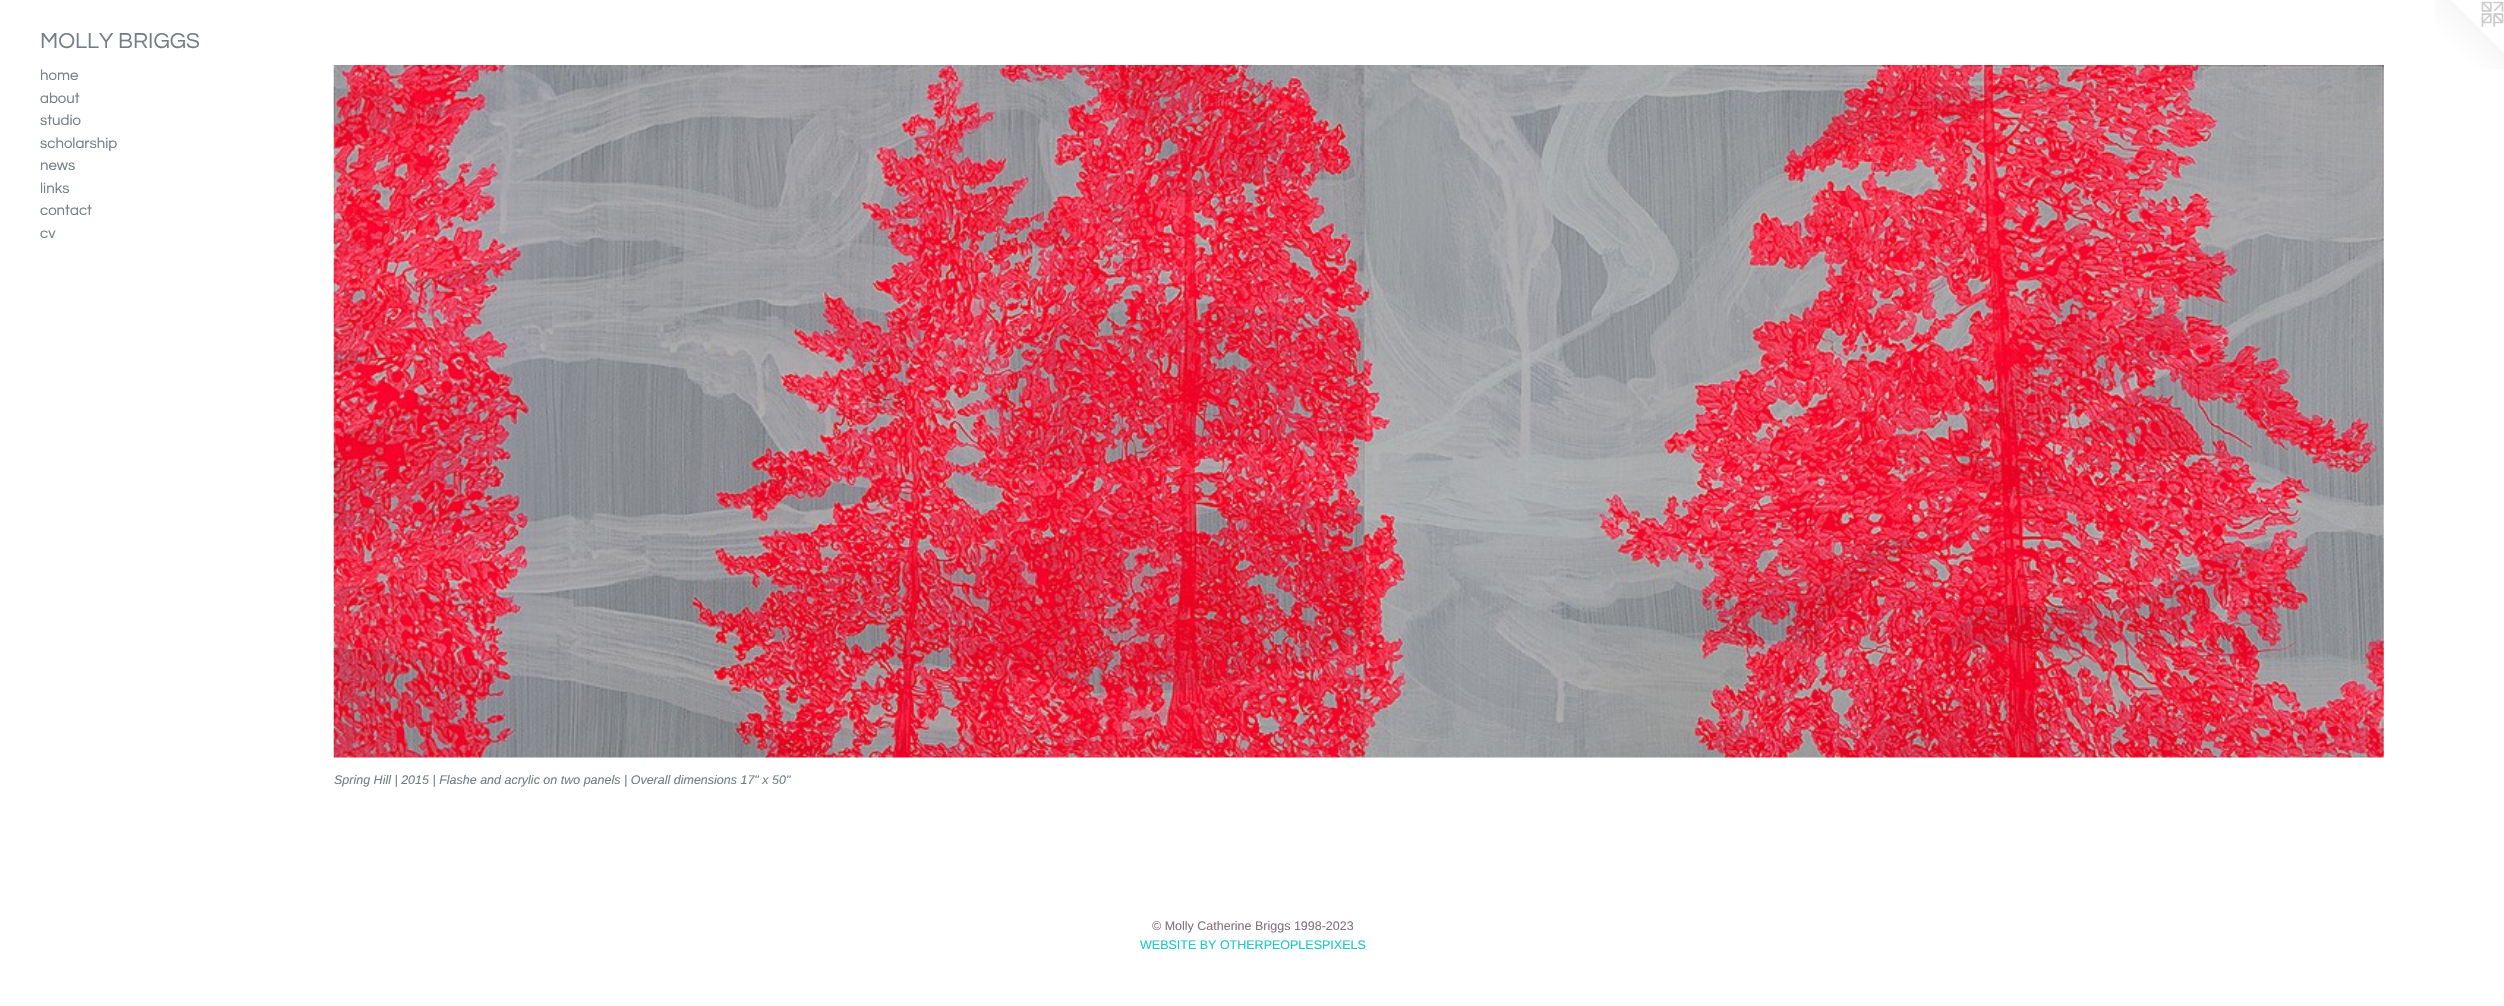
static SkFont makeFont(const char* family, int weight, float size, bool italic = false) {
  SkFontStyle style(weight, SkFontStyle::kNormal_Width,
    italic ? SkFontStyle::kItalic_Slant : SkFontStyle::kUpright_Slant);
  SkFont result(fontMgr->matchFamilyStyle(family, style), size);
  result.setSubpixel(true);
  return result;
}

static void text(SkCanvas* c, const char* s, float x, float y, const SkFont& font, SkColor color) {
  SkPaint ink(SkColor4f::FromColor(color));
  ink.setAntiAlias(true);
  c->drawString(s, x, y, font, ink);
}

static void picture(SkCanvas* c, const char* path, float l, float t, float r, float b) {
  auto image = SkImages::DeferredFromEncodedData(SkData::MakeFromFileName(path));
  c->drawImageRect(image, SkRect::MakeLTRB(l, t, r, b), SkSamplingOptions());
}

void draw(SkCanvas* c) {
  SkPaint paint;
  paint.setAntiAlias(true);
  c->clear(0xffffffff);
  SkFont face1 = makeFont("Questrial", 400, 22.5f);
  text(c, "MOLLY BRIGGS", 40, 48, face1, 0xff727e83);
  picture(c, "img_01.png", 2435, 0, 2504, 69);
  SkFont face2 = makeFont("Questrial", 400, 15);
  text(c, "home", 40, 80, face2, 0xff727e83);
  text(c, "about", 40, 103, face2, 0xff727e83);
  text(c, "studio", 40, 125, face2, 0xff727e83);
  text(c, "scholarship", 40, 148, face2, 0xff727e83);
  text(c, "news", 40, 170, face2, 0xff727e83);
  text(c, "links", 40, 193, face2, 0xff727e83);
  text(c, "contact", 40, 215, face2, 0xff727e83);
  text(c, "cv", 40, 238, face2, 0xff727e83);
  picture(c, "img_02.png", 333, 65, 2384, 758);
  SkFont face3 = makeFont("Liberation Sans", 400, 12.5f, true);
  text(c, "Spring Hill | 2015 | Flashe and acrylic on two panels | Overall dimensions 17\" x 50\"", 334, 784, face3, 0xff727e83);
  SkFont face4 = makeFont("Liberation Sans", 400, 12.5f);
  text(c, "© Molly Catherine Briggs 1998-2023", 1152, 930, face4, 0xff83727e);
  text(c, "WEBSITE BY OTHERPEOPLESPIXELS", 1140, 949, face4, 0xff1dc9c3);
}
